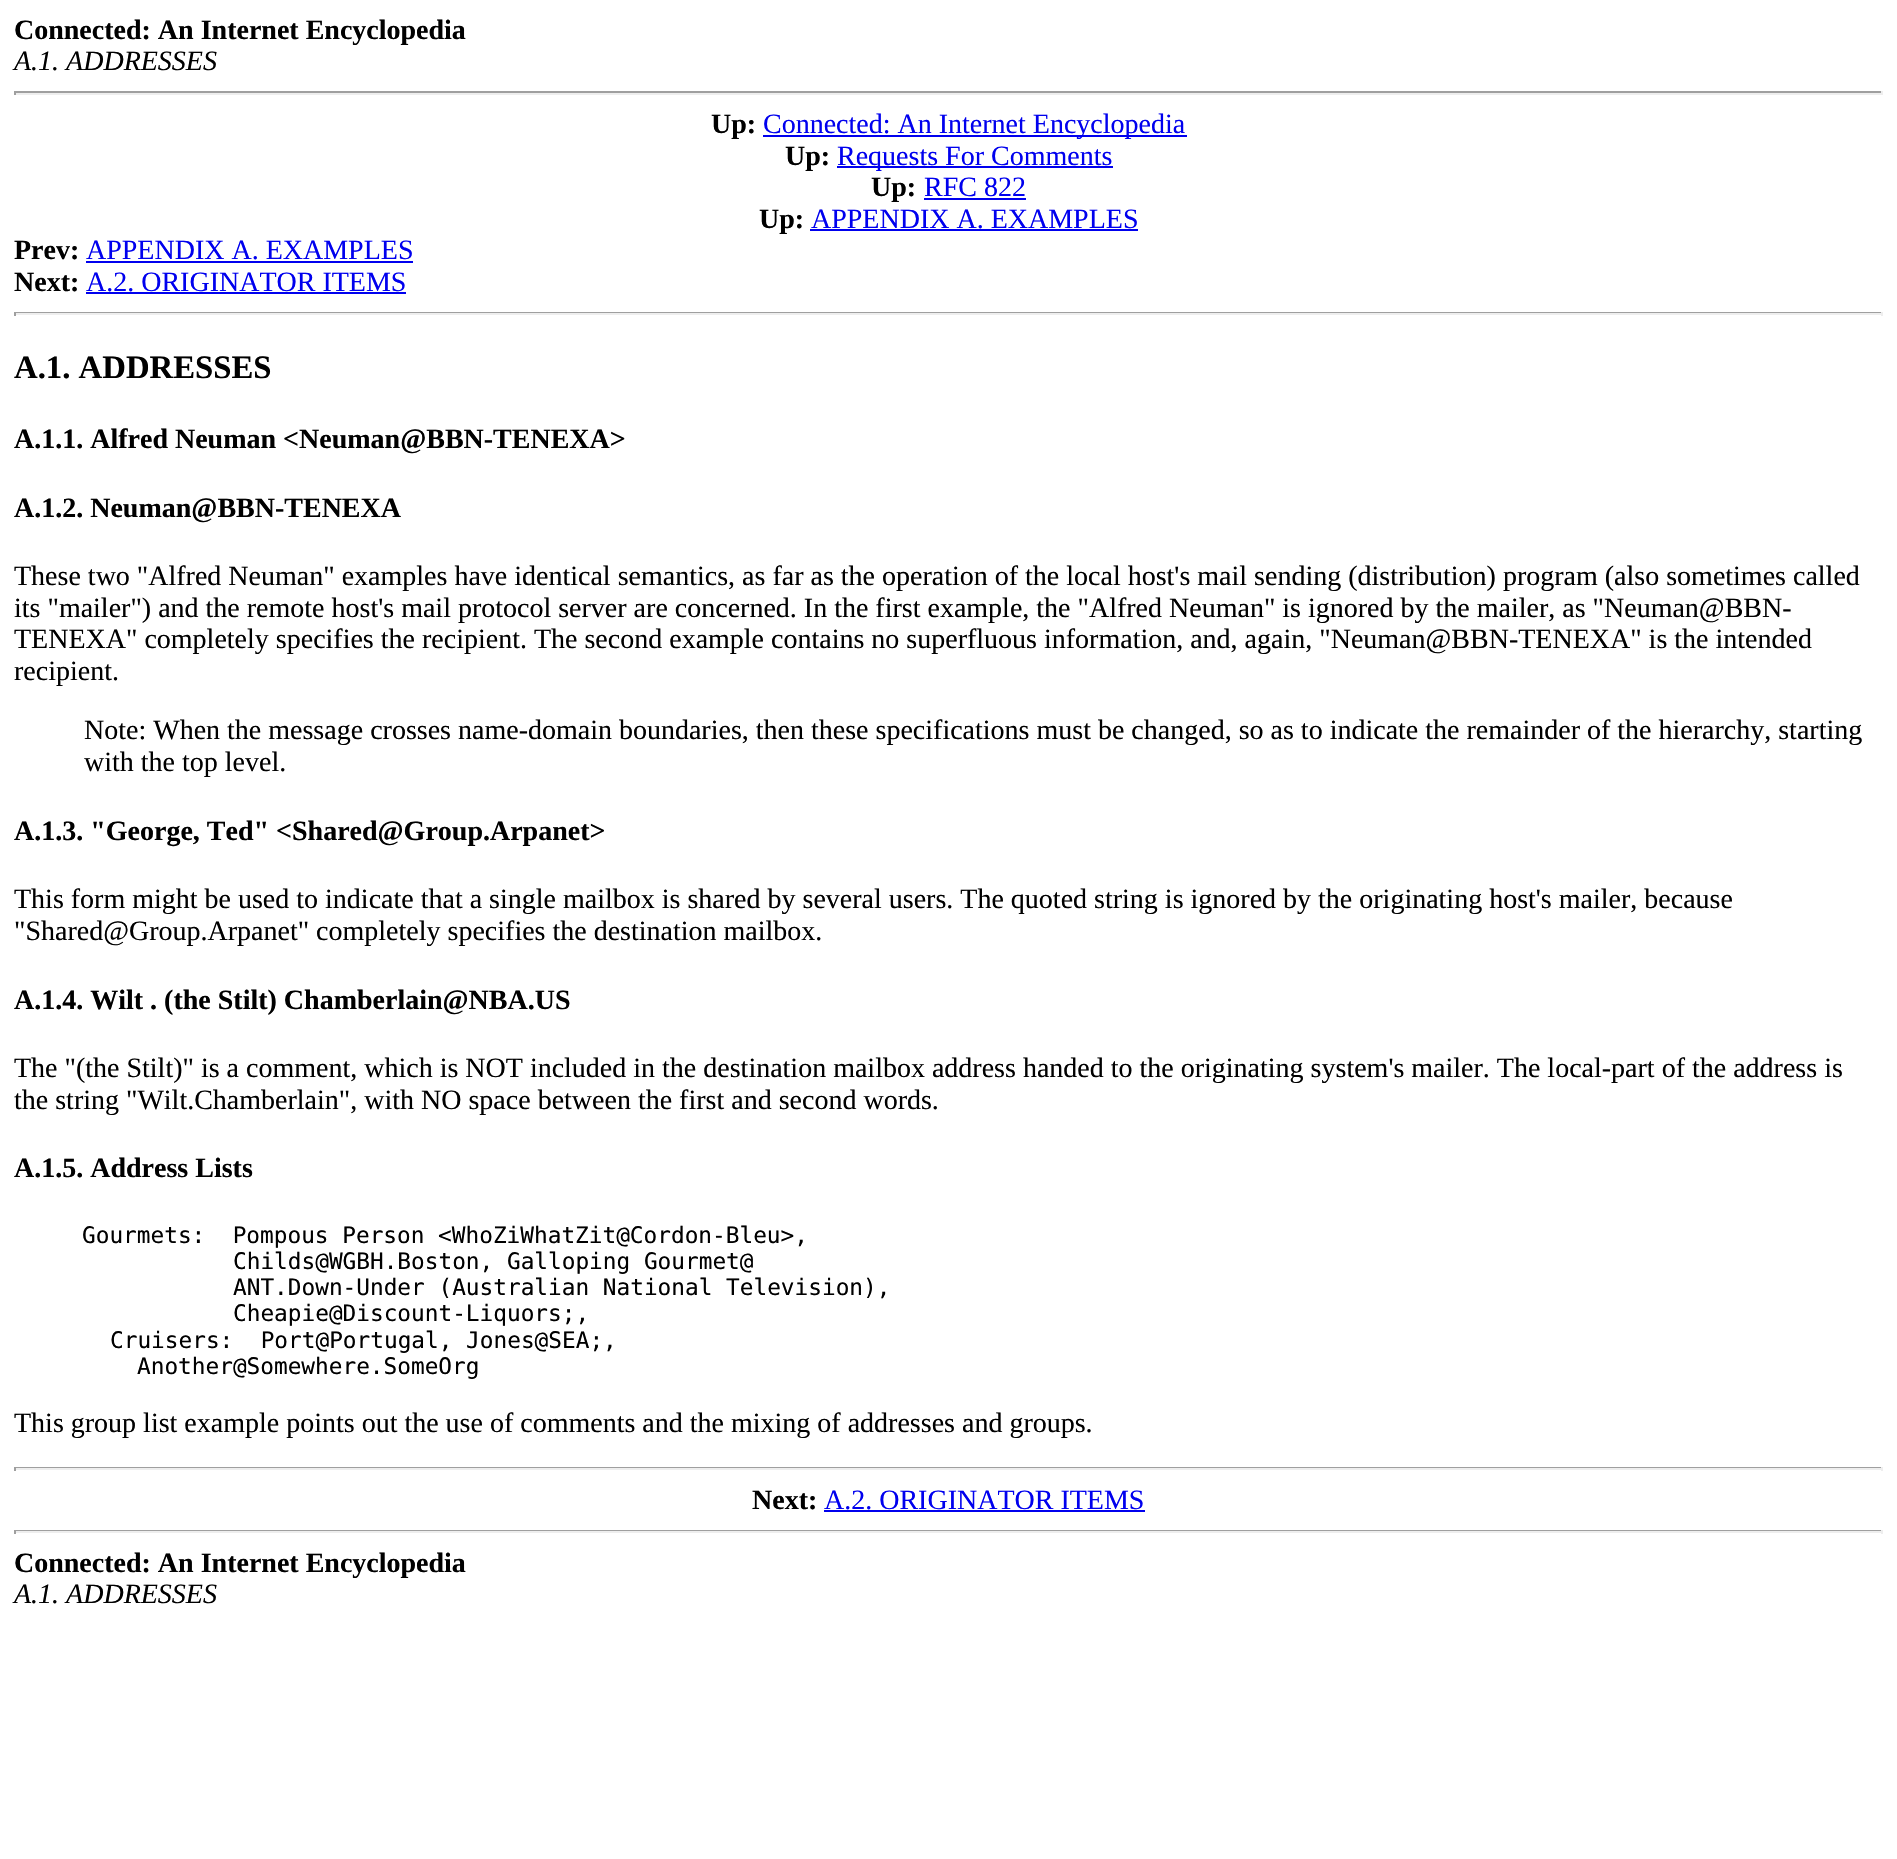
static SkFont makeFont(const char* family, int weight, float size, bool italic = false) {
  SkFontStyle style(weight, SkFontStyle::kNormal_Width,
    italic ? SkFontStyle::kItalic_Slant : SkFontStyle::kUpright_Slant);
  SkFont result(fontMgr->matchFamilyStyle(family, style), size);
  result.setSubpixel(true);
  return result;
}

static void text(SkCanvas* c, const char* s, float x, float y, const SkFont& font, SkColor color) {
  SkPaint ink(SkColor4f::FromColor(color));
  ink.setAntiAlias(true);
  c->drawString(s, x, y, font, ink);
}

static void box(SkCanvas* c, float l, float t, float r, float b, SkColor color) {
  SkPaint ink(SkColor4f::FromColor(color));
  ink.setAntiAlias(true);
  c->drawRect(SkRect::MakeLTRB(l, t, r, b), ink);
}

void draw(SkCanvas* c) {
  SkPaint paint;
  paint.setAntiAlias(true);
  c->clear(0xffffffff);
  SkFont face1 = makeFont("Liberation Serif", 700, 28);
  text(c, "Connected: An Internet Encyclopedia", 14, 39, face1, 0xff000000);
  SkFont face2 = makeFont("Liberation Serif", 400, 28, true);
  text(c, "A.1. ADDRESSES", 14, 70, face2, 0xff000000);
  box(c, 14, 91, 1883, 93, 0xff9f9f9f);
  box(c, 1881, 91, 1883, 95, 0xffeeeeee);
  box(c, 14, 93, 1883, 95, 0xffeeeeee);
  box(c, 14, 91, 16, 95, 0xff9f9f9f);
  text(c, "Up:", 711, 133, face1, 0xff000000);
  box(c, 763, 135, 1187, 137, 0xff0000ee);
  SkFont face3 = makeFont("Liberation Serif", 400, 28);
  text(c, "Connected: An Internet Encyclopedia", 763, 133, face3, 0xff0000ee);
  text(c, "Up:", 785, 165, face1, 0xff000000);
  box(c, 837, 166, 1113, 168, 0xff0000ee);
  text(c, "Requests For Comments", 837, 165, face3, 0xff0000ee);
  text(c, "Up:", 871, 196, face1, 0xff000000);
  text(c, "RFC 822", 924, 196, face3, 0xff0000ee);
  box(c, 924, 198, 1026, 200, 0xff0000ee);
  text(c, "Up:", 759, 228, face1, 0xff000000);
  text(c, "APPENDIX A. EXAMPLES", 811, 228, face3, 0xff0000ee);
  box(c, 810, 229, 1138, 231, 0xff0000ee);
  text(c, "Prev:", 14, 259, face1, 0xff000000);
  text(c, "APPENDIX A. EXAMPLES", 86, 259, face3, 0xff0000ee);
  box(c, 86, 261, 413, 263, 0xff0000ee);
  text(c, "Next:", 14, 291, face1, 0xff000000);
  text(c, "A.2. ORIGINATOR ITEMS", 86, 291, face3, 0xff0000ee);
  box(c, 86, 292, 406, 294, 0xff0000ee);
  box(c, 14, 312, 1883, 313, 0xff9f9f9f);
  box(c, 1881, 312, 1883, 316, 0xffeeeeee);
  box(c, 14, 313, 1883, 315, 0xffeeeeee);
  box(c, 14, 312, 16, 316, 0xff9f9f9f);
  SkFont face4 = makeFont("Liberation Serif", 700, 32.75f);
  text(c, "A.1. ADDRESSES", 14, 378, face4, 0xff000000);
  text(c, "A.1.1. Alfred Neuman <Neuman@BBN-TENEXA>", 14, 448, face1, 0xff000000);
  text(c, "A.1.2. Neuman@BBN-TENEXA", 14, 517, face1, 0xff000000);
  text(c, "These two \"Alfred Neuman\" examples have identical semantics, as far as the operation of the local host's mail sending (distribution) program (also sometimes called", 14, 585, face3, 0xff000000);
  text(c, "its \"mailer\") and the remote host's mail protocol server are concerned. In the first example, the \"Alfred Neuman\" is ignored by the mailer, as \"Neuman@BBN-", 14, 617, face3, 0xff000000);
  text(c, "TENEXA\" completely specifies the recipient. The second example contains no superfluous information, and, again, \"Neuman@BBN-TENEXA\" is the intended", 14, 648, face3, 0xff000000);
  text(c, "recipient.", 14, 680, face3, 0xff000000);
  text(c, "Note: When the message crosses name-domain boundaries, then these specifications must be changed, so as to indicate the remainder of the hierarchy, starting", 84, 739, face3, 0xff000000);
  text(c, "with the top level.", 84, 771, face3, 0xff000000);
  text(c, "A.1.3. \"George, Ted\" <Shared@Group.Arpanet>", 14, 840, face1, 0xff000000);
  text(c, "This form might be used to indicate that a single mailbox is shared by several users. The quoted string is ignored by the originating host's mailer, because", 14, 908, face3, 0xff000000);
  text(c, "\"Shared@Group.Arpanet\" completely specifies the destination mailbox.", 14, 940, face3, 0xff000000);
  text(c, "A.1.4. Wilt . (the Stilt) Chamberlain@NBA.US", 14, 1009, face1, 0xff000000);
  text(c, "The \"(the Stilt)\" is a comment, which is NOT included in the destination mailbox address handed to the originating system's mailer. The local-part of the address is", 14, 1077, face3, 0xff000000);
  text(c, "the string \"Wilt.Chamberlain\", with NO space between the first and second words.", 14, 1109, face3, 0xff000000);
  text(c, "A.1.5. Address Lists", 14, 1177, face1, 0xff000000);
  SkFont face5 = makeFont("DejaVu Sans Mono", 400, 22.75f);
  text(c, "Gourmets:  Pompous Person <WhoZiWhatZit@Cordon-Bleu>,", 82, 1243, face5, 0xff000000);
  text(c, "Childs@WGBH.Boston, Galloping Gourmet@", 233, 1269, face5, 0xff000000);
  text(c, "ANT.Down-Under (Australian National Television),", 233, 1295, face5, 0xff000000);
  text(c, "Cheapie@Discount-Liquors;,", 233, 1321, face5, 0xff000000);
  text(c, "Cruisers:  Port@Portugal, Jones@SEA;,", 110, 1348, face5, 0xff000000);
  text(c, "Another@Somewhere.SomeOrg", 137, 1374, face5, 0xff000000);
  text(c, "This group list example points out the use of comments and the mixing of addresses and groups.", 14, 1432, face3, 0xff000000);
  box(c, 14, 1467, 1883, 1468, 0xff9f9f9f);
  box(c, 1881, 1467, 1883, 1471, 0xffeeeeee);
  box(c, 14, 1468, 1883, 1470, 0xffeeeeee);
  box(c, 14, 1467, 16, 1471, 0xff9f9f9f);
  text(c, "Next:", 752, 1509, face1, 0xff000000);
  text(c, "A.2. ORIGINATOR ITEMS", 824, 1509, face3, 0xff0000ee);
  box(c, 824, 1510, 1145, 1512, 0xff0000ee);
  box(c, 14, 1530, 1883, 1531, 0xff9f9f9f);
  box(c, 1881, 1530, 1883, 1534, 0xffeeeeee);
  box(c, 14, 1531, 1883, 1533, 0xffeeeeee);
  box(c, 14, 1530, 16, 1534, 0xff9f9f9f);
  text(c, "Connected: An Internet Encyclopedia", 14, 1572, face1, 0xff000000);
  text(c, "A.1. ADDRESSES", 14, 1603, face2, 0xff000000);
}
